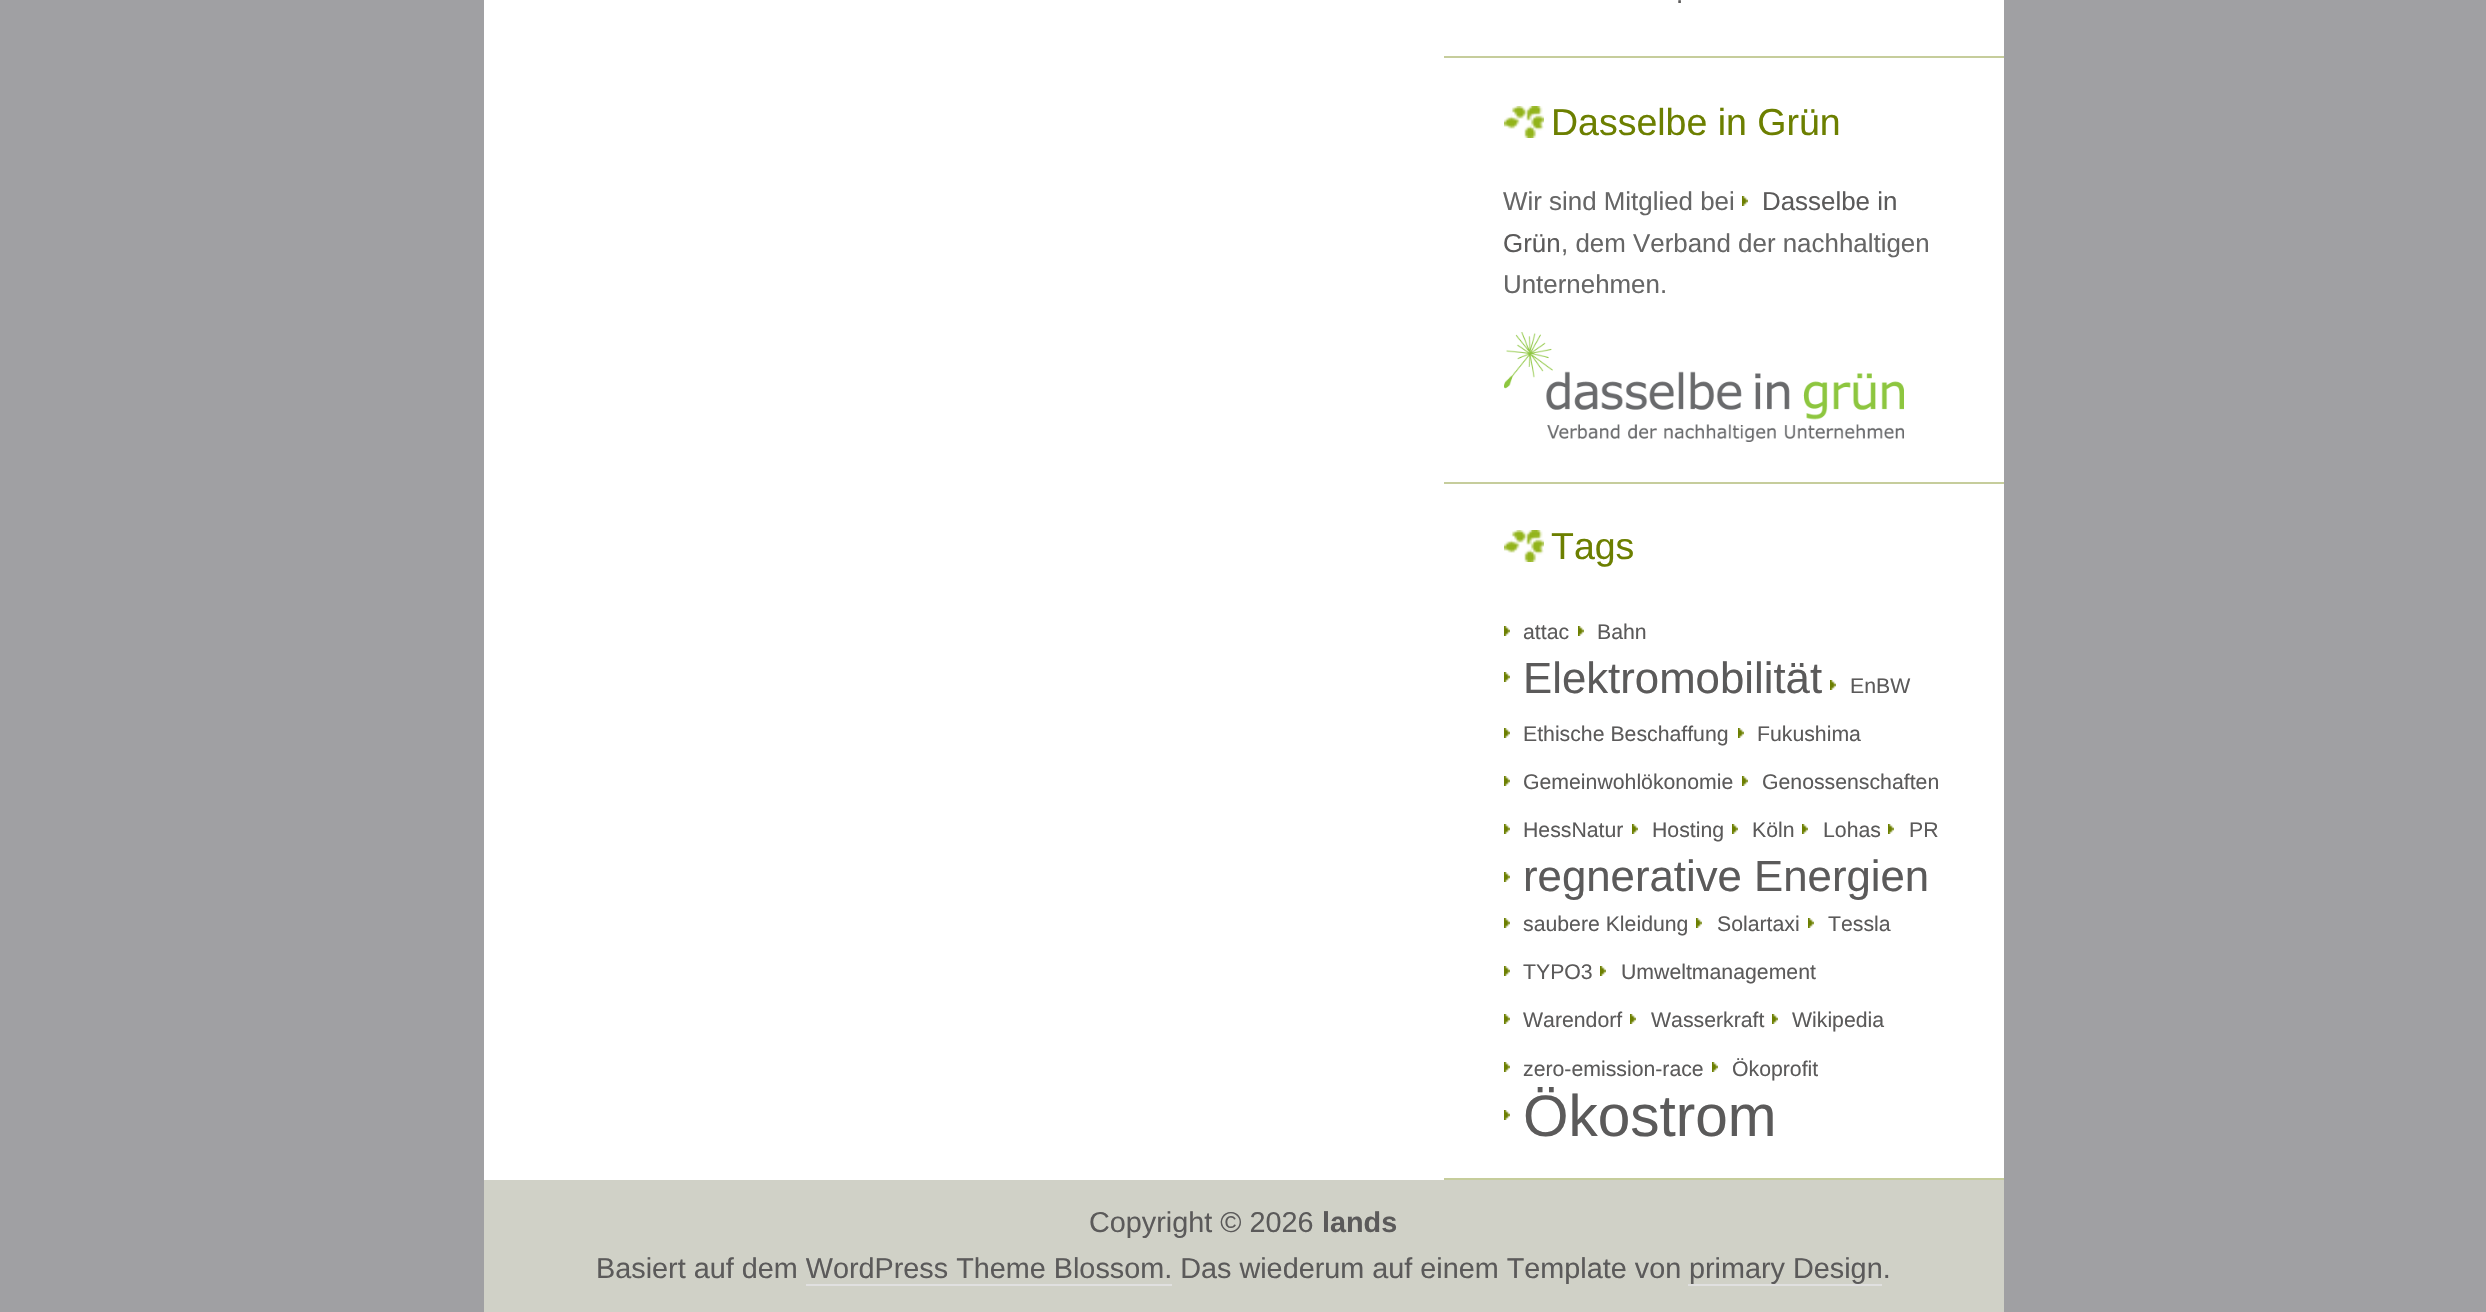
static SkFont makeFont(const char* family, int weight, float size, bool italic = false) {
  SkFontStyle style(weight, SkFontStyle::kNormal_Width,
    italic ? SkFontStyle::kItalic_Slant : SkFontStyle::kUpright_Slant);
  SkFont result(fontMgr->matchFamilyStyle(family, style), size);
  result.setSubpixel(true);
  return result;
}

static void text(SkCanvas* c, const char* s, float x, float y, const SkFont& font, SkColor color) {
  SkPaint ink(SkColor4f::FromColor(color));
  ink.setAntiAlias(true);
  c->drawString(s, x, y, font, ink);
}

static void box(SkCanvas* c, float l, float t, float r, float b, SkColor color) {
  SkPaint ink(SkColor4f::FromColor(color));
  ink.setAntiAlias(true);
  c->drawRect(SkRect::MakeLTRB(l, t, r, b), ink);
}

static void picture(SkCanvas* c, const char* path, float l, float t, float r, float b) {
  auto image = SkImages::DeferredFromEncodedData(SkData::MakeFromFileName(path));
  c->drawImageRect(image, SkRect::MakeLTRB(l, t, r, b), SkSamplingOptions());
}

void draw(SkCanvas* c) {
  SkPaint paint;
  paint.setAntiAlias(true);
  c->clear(0xffa0a0a3);
  box(c, 484, 0, 2004, 1180, 0xffffffff);
  box(c, 1444, 56, 2004, 58, 0xffc6cd9c);
  SkFont face1 = makeFont("Liberation Sans", 400, 25.9f);
  text(c, ".", 1676, 3, face1, 0xff5b5a5a);
  box(c, 1444, 482, 2004, 484, 0xffc6cd9c);
  picture(c, "img_01.png", 1504, 106, 1544, 138);
  SkFont face2 = makeFont("Liberation Sans", 400, 37.5f);
  text(c, "Dasselbe in Grün", 1551, 135, face2, 0xff6c7f00);
  text(c, "Wir sind Mitglied bei", 1503, 210, face1, 0xff666666);
  picture(c, "img_02.png", 1742, 196, 1748, 206);
  text(c, "Dasselbe in", 1762, 210, face1, 0xff5b5a5a);
  text(c, "Grün", 1503, 252, face1, 0xff5b5a5a);
  text(c, ", dem Verband der nachhaltigen", 1561, 252, face1, 0xff666666);
  text(c, "Unternehmen.", 1503, 293, face1, 0xff666666);
  picture(c, "img_03.png", 1504, 332, 1904, 442);
  box(c, 1444, 1178, 2004, 1180, 0xffc6cd9c);
  picture(c, "img_01.png", 1504, 530, 1544, 562);
  text(c, "Tags", 1551, 559, face2, 0xff6c7f00);
  picture(c, "img_02.png", 1504, 626, 1510, 636);
  SkFont face3 = makeFont("Liberation Sans", 400, 21.25f);
  text(c, "attac", 1523, 639, face3, 0xff5b5a5a);
  picture(c, "img_02.png", 1578, 626, 1584, 636);
  text(c, "Bahn", 1597, 639, face3, 0xff5b5a5a);
  picture(c, "img_02.png", 1504, 672, 1510, 682);
  SkFont face4 = makeFont("Liberation Sans", 400, 43.75f);
  text(c, "Elektromobilität", 1523, 693, face4, 0xff5b5a5a);
  picture(c, "img_02.png", 1830, 680, 1836, 690);
  text(c, "EnBW", 1850, 693, face3, 0xff5b5a5a);
  picture(c, "img_02.png", 1504, 728, 1510, 738);
  text(c, "Ethische Beschaffung", 1523, 741, face3, 0xff5b5a5a);
  picture(c, "img_02.png", 1738, 728, 1744, 738);
  text(c, "Fukushima", 1757, 741, face3, 0xff5b5a5a);
  picture(c, "img_02.png", 1504, 776, 1510, 786);
  text(c, "Gemeinwohlökonomie", 1523, 789, face3, 0xff5b5a5a);
  picture(c, "img_02.png", 1742, 776, 1748, 786);
  text(c, "Genossenschaften", 1762, 789, face3, 0xff5b5a5a);
  picture(c, "img_02.png", 1504, 824, 1510, 834);
  text(c, "HessNatur", 1523, 837, face3, 0xff5b5a5a);
  picture(c, "img_02.png", 1632, 824, 1638, 834);
  text(c, "Hosting", 1652, 837, face3, 0xff5b5a5a);
  picture(c, "img_02.png", 1732, 824, 1738, 834);
  text(c, "Köln", 1752, 837, face3, 0xff5b5a5a);
  picture(c, "img_02.png", 1802, 824, 1808, 834);
  text(c, "Lohas", 1823, 837, face3, 0xff5b5a5a);
  picture(c, "img_02.png", 1888, 824, 1894, 834);
  text(c, "PR", 1909, 837, face3, 0xff5b5a5a);
  picture(c, "img_02.png", 1504, 872, 1510, 882);
  text(c, "regnerative Energien", 1523, 891, face4, 0xff5b5a5a);
  picture(c, "img_02.png", 1504, 918, 1510, 928);
  text(c, "saubere Kleidung", 1523, 931, face3, 0xff5b5a5a);
  picture(c, "img_02.png", 1696, 918, 1702, 928);
  text(c, "Solartaxi", 1717, 931, face3, 0xff5b5a5a);
  picture(c, "img_02.png", 1808, 918, 1814, 928);
  text(c, "Tessla", 1828, 931, face3, 0xff5b5a5a);
  picture(c, "img_02.png", 1504, 966, 1510, 976);
  text(c, "TYPO3", 1523, 979, face3, 0xff5b5a5a);
  picture(c, "img_02.png", 1600, 966, 1606, 976);
  text(c, "Umweltmanagement", 1621, 979, face3, 0xff5b5a5a);
  picture(c, "img_02.png", 1504, 1014, 1510, 1024);
  text(c, "Warendorf", 1523, 1027, face3, 0xff5b5a5a);
  picture(c, "img_02.png", 1630, 1014, 1636, 1024);
  text(c, "Wasserkraft", 1651, 1027, face3, 0xff5b5a5a);
  picture(c, "img_02.png", 1772, 1014, 1778, 1024);
  text(c, "Wikipedia", 1792, 1027, face3, 0xff5b5a5a);
  picture(c, "img_02.png", 1504, 1062, 1510, 1072);
  text(c, "zero-emission-race", 1523, 1076, face3, 0xff5b5a5a);
  picture(c, "img_02.png", 1712, 1062, 1718, 1072);
  text(c, "Ökoprofit", 1732, 1076, face3, 0xff5b5a5a);
  picture(c, "img_02.png", 1504, 1110, 1510, 1120);
  SkFont face5 = makeFont("Liberation Sans", 400, 58.5f);
  text(c, "Ökostrom", 1523, 1136, face5, 0xff5b5a5a);
  box(c, 484, 1180, 2004, 1312, 0xffd0d1c7);
  SkFont face6 = makeFont("Liberation Sans", 400, 28.8f);
  text(c, "Copyright © 2026", 1089, 1232, face6, 0xff5b5a5a);
  SkFont face7 = makeFont("Liberation Sans", 700, 28.8f);
  text(c, "lands", 1322, 1232, face7, 0xff5b5a5a);
  text(c, "Basiert auf dem WordPress Theme Blossom. Das wiederum auf einem Template von", 596, 1278, face6, 0xff5b5a5a);
  text(c, "primary Design.", 1689, 1278, face6, 0xff5b5a5a);
  box(c, 1688, 1284, 1882, 1286, 0xffe0e0e0);
  box(c, 806, 1284, 1172, 1286, 0xffe0e0e0);
}
